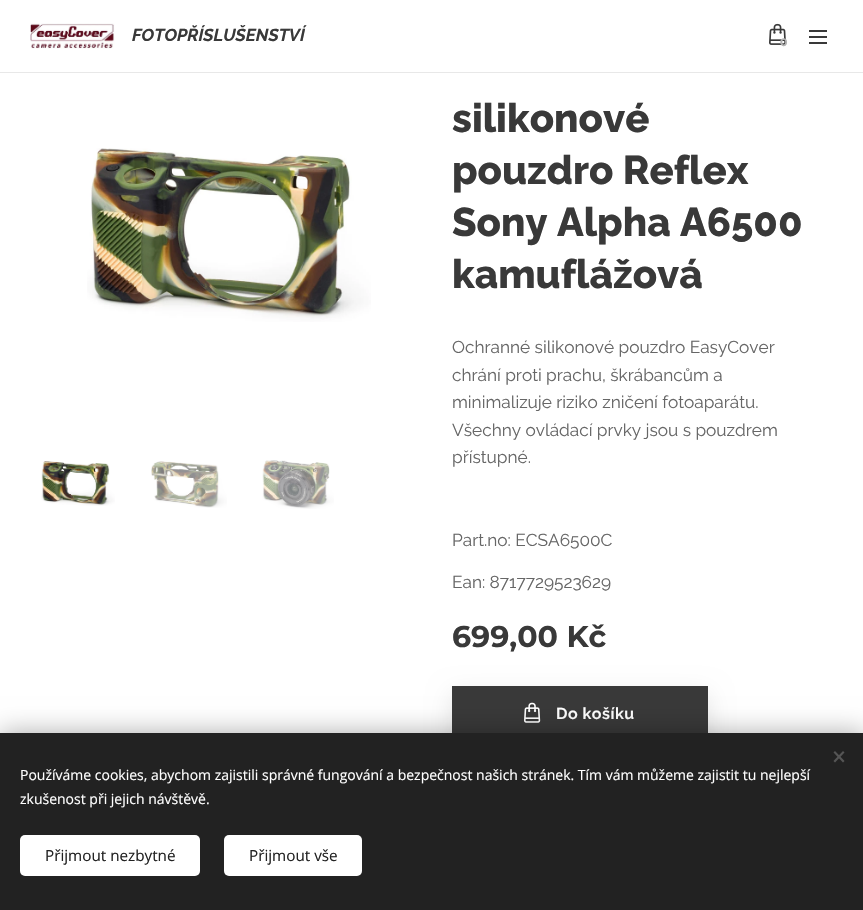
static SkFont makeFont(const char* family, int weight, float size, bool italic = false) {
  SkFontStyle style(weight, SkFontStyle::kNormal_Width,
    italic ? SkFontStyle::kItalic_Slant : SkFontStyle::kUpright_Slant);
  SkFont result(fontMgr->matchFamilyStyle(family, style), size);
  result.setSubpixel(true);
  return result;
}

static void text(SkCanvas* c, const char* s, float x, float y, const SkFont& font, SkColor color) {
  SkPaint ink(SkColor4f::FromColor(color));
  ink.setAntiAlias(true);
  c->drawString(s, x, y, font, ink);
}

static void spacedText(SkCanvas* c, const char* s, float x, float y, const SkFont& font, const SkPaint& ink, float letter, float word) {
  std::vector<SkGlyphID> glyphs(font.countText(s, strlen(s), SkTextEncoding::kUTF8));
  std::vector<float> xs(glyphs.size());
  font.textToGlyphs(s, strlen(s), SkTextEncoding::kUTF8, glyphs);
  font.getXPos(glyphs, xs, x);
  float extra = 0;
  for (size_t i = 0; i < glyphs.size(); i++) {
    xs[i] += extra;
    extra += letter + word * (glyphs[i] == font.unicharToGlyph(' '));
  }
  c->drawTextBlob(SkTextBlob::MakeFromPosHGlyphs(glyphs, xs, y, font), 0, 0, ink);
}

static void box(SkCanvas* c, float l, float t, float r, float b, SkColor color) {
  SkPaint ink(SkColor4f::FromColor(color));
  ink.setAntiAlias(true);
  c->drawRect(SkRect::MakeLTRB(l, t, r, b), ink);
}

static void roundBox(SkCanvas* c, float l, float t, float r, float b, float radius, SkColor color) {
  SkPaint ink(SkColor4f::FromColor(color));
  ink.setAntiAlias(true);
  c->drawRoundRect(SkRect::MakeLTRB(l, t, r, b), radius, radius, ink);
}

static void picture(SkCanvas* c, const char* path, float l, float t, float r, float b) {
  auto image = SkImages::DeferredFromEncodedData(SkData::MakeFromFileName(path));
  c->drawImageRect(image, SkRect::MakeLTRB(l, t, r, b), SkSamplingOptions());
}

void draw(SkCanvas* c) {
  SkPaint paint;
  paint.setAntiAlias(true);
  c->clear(0xffffffff);
  box(c, 0, 72, 863, 73, 0xffe8e8e8);
  picture(c, "img_01.png", 30, 23, 115, 49);
  SkFont face1 = makeFont("Raleway", 700, 17.25f, true);
  text(c, "FOTOPŘÍSLUŠENSTVÍ", 132, 41, face1, 0xff393939);
  picture(c, "img_02.png", 769, 23, 786, 45);
  SkFont face2 = makeFont("Montserrat", 700, 11);
  text(c, "0", 780, 46, face2, 0xffb3b3b3);
  box(c, 809, 36, 827, 38, 0xff393939);
  box(c, 809, 30, 827, 32, 0xff393939);
  box(c, 809, 42, 827, 44, 0xff393939);
  picture(c, "img_03.png", 87, 148, 371, 322);
  picture(c, "img_04.png", 41, 461, 115, 506);
  picture(c, "img_05.png", 151, 461, 227, 508);
  picture(c, "img_06.png", 262, 460, 334, 509);
  SkFont face3 = makeFont("Raleway", 800, 40);
  text(c, "silikonové", 452, 132, face3, 0xff393939);
  text(c, "pouzdro Reflex", 452, 184, face3, 0xff393939);
  text(c, "Sony Alpha A6500", 452, 236, face3, 0xff393939);
  text(c, "kamuflážová", 452, 288, face3, 0xff393939);
  SkFont face4 = makeFont("Raleway", 400, 17.25f);
  text(c, "Ochranné silikonové pouzdro EasyCover", 452, 353, face4, 0xff666666);
  text(c, "chrání proti prachu, škrábancům a", 452, 381, face4, 0xff666666);
  text(c, "minimalizuje riziko zničení fotoaparátu.", 452, 408, face4, 0xff666666);
  text(c, "Všechny ovládací prvky jsou s pouzdrem", 452, 436, face4, 0xff666666);
  text(c, "přístupné.", 452, 463, face4, 0xff666666);
  text(c, "Part.no: ECSA6500C", 452, 546, face4, 0xff666666);
  text(c, "Ean: 8717729523629", 452, 588, face4, 0xff666666);
  SkFont face5 = makeFont("Montserrat", 700, 30);
  text(c, "699,00 Kč", 452, 647, face5, 0xff393939);
  paint.setColor(0x1a000000);
  paint.setMaskFilter(SkMaskFilter::MakeBlur(kNormal_SkBlurStyle, 12.5f));
  c->drawRect(SkRect::MakeLTRB(452, 694, 708, 750), paint);
  paint.setMaskFilter(nullptr);
  box(c, 452, 686, 708, 733, 0xff393939);
  picture(c, "img_07.png", 524, 702, 541, 723);
  SkFont face6 = makeFont("Raleway", 600, 16);
  paint.setColor(0xffffffff);
  spacedText(c, "Do košíku", 556, 719, face6, paint, 0.5f, 0);
  paint.setColor(0x54000000);
  paint.setMaskFilter(SkMaskFilter::MakeBlur(kNormal_SkBlurStyle, 12.5f));
  c->drawRect(SkRect::MakeLTRB(0, 733, 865, 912), paint);
  paint.setMaskFilter(nullptr);
  box(c, 0, 733, 863, 910, 0xff222222);
  paint.setColor(0xff555555);
  c->drawPath(SkPathBuilder().moveTo(833.5f, 761).lineTo(843, 751).lineTo(844.5f, 752.5f).lineTo(835, 762.5f).close().detach(), paint);
  c->drawPath(SkPathBuilder().moveTo(835, 751).lineTo(844.5f, 761).lineTo(843, 762.5f).lineTo(833.5f, 752.5f).close().detach(), paint);
  SkFont face7 = makeFont("Open Sans", 400, 14);
  text(c, "Používáme cookies, abychom zajistili správné fungování a bezpečnost našich stránek. Tím vám můžeme zajistit tu nejlepší", 20, 780, face7, 0xffffffff);
  text(c, "zkušenost při jejich návštěvě.", 20, 804, face7, 0xffffffff);
  roundBox(c, 20, 835, 200, 876, 5, 0xffffffff);
  SkFont face8 = makeFont("Open Sans", 400, 15.25f);
  text(c, "Přijmout nezbytné", 45, 861, face8, 0xff222222);
  roundBox(c, 224, 835, 362, 876, 5, 0xffffffff);
  text(c, "Přijmout vše", 249, 861, face8, 0xff222222);
}
